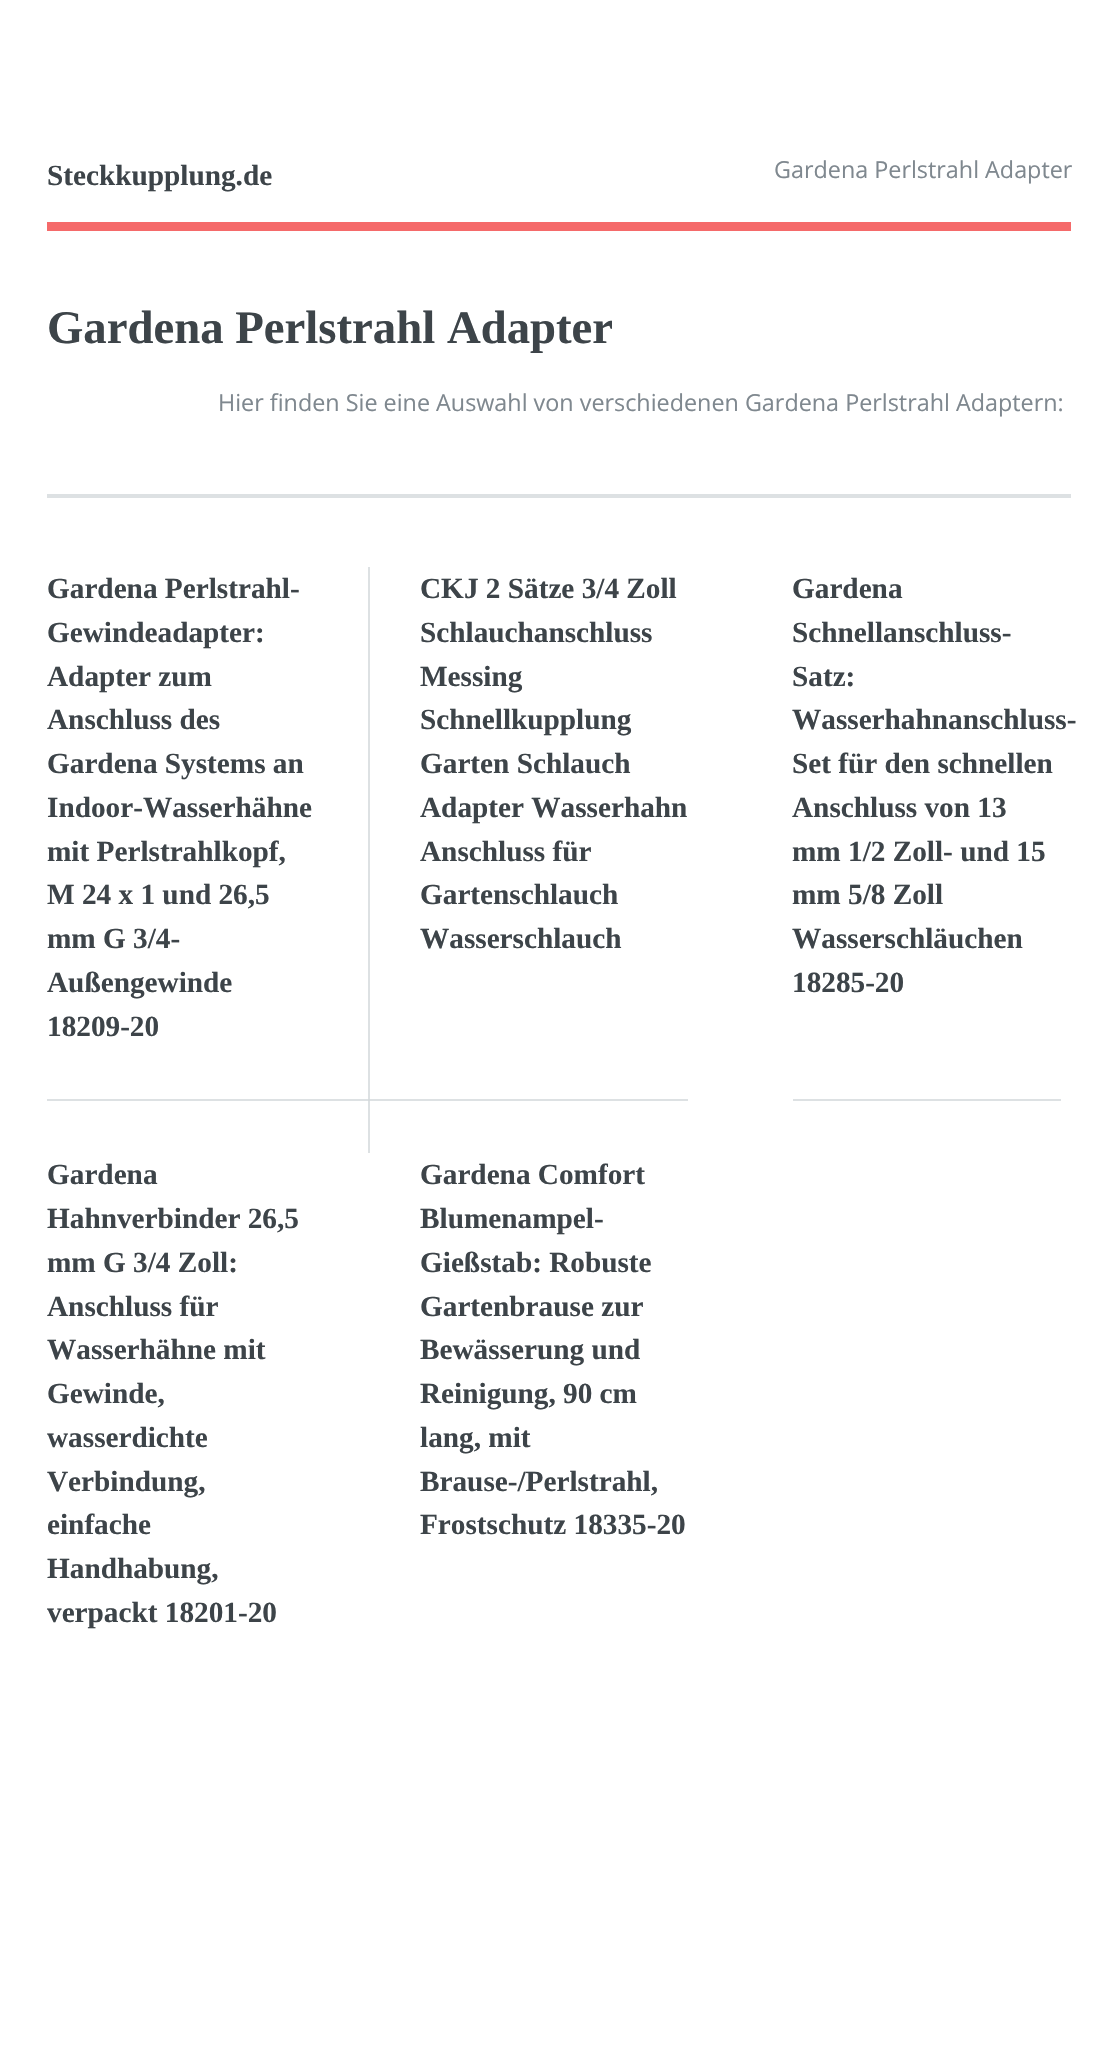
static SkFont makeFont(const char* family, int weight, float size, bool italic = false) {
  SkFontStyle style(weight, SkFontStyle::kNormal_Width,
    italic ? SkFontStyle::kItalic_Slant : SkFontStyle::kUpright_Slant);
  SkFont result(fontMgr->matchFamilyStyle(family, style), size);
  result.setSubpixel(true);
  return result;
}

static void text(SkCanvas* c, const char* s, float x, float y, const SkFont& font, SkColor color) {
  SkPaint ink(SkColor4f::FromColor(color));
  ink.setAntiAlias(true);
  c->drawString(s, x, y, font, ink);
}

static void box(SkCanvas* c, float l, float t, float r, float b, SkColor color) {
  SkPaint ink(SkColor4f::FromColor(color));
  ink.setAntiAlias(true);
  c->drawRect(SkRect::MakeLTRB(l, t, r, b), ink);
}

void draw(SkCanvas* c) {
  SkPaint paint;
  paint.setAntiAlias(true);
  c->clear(0xffffffff);
  box(c, 47, 1099, 688, 1101, 0xffdde1e3);
  box(c, 47, 222, 1071, 231, 0xfff56a6a);
  SkFont face1 = makeFont("Liberation Serif", 700, 29.25f);
  text(c, "Steckkupplung.de", 47, 185, face1, 0xff3d4449);
  SkFont face2 = makeFont("Open Sans", 400, 23.35f);
  text(c, "Gardena Perlstrahl Adapter", 774, 178, face2, 0xff7f888f);
  SkFont face3 = makeFont("Liberation Serif", 700, 46.75f);
  text(c, "Gardena Perlstrahl Adapter", 47, 343, face3, 0xff3d4449);
  text(c, "Hier finden Sie eine Auswahl von verschiedenen Gardena Perlstrahl Adaptern:", 218, 411, face2, 0xff7f888f);
  box(c, 47, 494, 1071, 498, 0xffdde1e3);
  text(c, "Gardena Perlstrahl-", 47, 598, face1, 0xff3d4449);
  text(c, "Gewindeadapter:", 47, 642, face1, 0xff3d4449);
  text(c, "Adapter zum", 47, 686, face1, 0xff3d4449);
  text(c, "Anschluss des", 47, 729, face1, 0xff3d4449);
  text(c, "Gardena Systems an", 47, 773, face1, 0xff3d4449);
  text(c, "Indoor-Wasserhähne", 47, 817, face1, 0xff3d4449);
  text(c, "mit Perlstrahlkopf,", 47, 861, face1, 0xff3d4449);
  text(c, "M 24 x 1 und 26,5", 47, 904, face1, 0xff3d4449);
  text(c, "mm G 3/4-", 47, 948, face1, 0xff3d4449);
  text(c, "Außengewinde", 47, 992, face1, 0xff3d4449);
  text(c, "18209-20", 47, 1036, face1, 0xff3d4449);
  box(c, 368, 567, 370, 1153, 0xffdde1e3);
  box(c, 368, 1099, 370, 1101, 0xffd5dadc);
  text(c, "CKJ 2 Sätze 3/4 Zoll", 420, 598, face1, 0xff3d4449);
  text(c, "Schlauchanschluss", 420, 642, face1, 0xff3d4449);
  text(c, "Messing", 420, 686, face1, 0xff3d4449);
  text(c, "Schnellkupplung", 420, 729, face1, 0xff3d4449);
  text(c, "Garten Schlauch", 420, 773, face1, 0xff3d4449);
  text(c, "Adapter Wasserhahn", 420, 817, face1, 0xff3d4449);
  text(c, "Anschluss für", 420, 861, face1, 0xff3d4449);
  text(c, "Gartenschlauch", 420, 904, face1, 0xff3d4449);
  text(c, "Wasserschlauch", 420, 948, face1, 0xff3d4449);
  text(c, "Gardena", 792, 598, face1, 0xff3d4449);
  text(c, "Schnellanschluss-", 792, 642, face1, 0xff3d4449);
  text(c, "Satz:", 792, 686, face1, 0xff3d4449);
  text(c, "Wasserhahnanschluss-", 792, 729, face1, 0xff3d4449);
  text(c, "Set für den schnellen", 792, 773, face1, 0xff3d4449);
  text(c, "Anschluss von 13", 792, 817, face1, 0xff3d4449);
  text(c, "mm 1/2 Zoll- und 15", 792, 861, face1, 0xff3d4449);
  text(c, "mm 5/8 Zoll", 792, 904, face1, 0xff3d4449);
  text(c, "Wasserschläuchen", 792, 948, face1, 0xff3d4449);
  text(c, "18285-20", 792, 992, face1, 0xff3d4449);
  box(c, 793, 1099, 1061, 1101, 0xffdde1e3);
  text(c, "Gardena", 47, 1184, face1, 0xff3d4449);
  text(c, "Hahnverbinder 26,5", 47, 1228, face1, 0xff3d4449);
  text(c, "mm G 3/4 Zoll:", 47, 1272, face1, 0xff3d4449);
  text(c, "Anschluss für", 47, 1316, face1, 0xff3d4449);
  text(c, "Wasserhähne mit", 47, 1359, face1, 0xff3d4449);
  text(c, "Gewinde,", 47, 1403, face1, 0xff3d4449);
  text(c, "wasserdichte", 47, 1447, face1, 0xff3d4449);
  text(c, "Verbindung,", 47, 1491, face1, 0xff3d4449);
  text(c, "einfache", 47, 1534, face1, 0xff3d4449);
  text(c, "Handhabung,", 47, 1578, face1, 0xff3d4449);
  text(c, "verpackt 18201-20", 47, 1622, face1, 0xff3d4449);
  text(c, "Gardena Comfort", 420, 1184, face1, 0xff3d4449);
  text(c, "Blumenampel-", 420, 1228, face1, 0xff3d4449);
  text(c, "Gießstab: Robuste", 420, 1272, face1, 0xff3d4449);
  text(c, "Gartenbrause zur", 420, 1316, face1, 0xff3d4449);
  text(c, "Bewässerung und", 420, 1359, face1, 0xff3d4449);
  text(c, "Reinigung, 90 cm", 420, 1403, face1, 0xff3d4449);
  text(c, "lang, mit", 420, 1447, face1, 0xff3d4449);
  text(c, "Brause-/Perlstrahl,", 420, 1491, face1, 0xff3d4449);
  text(c, "Frostschutz 18335-20", 420, 1534, face1, 0xff3d4449);
}
